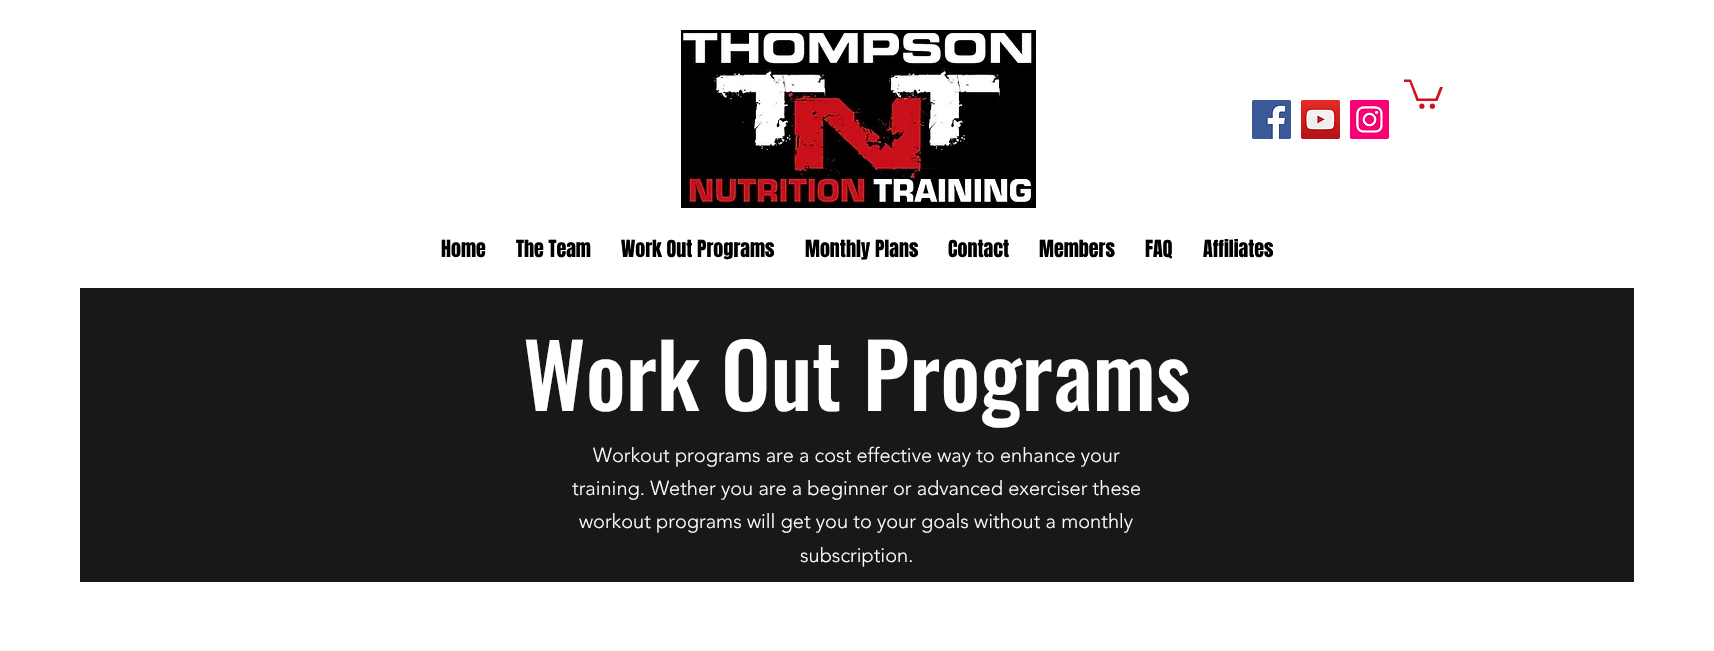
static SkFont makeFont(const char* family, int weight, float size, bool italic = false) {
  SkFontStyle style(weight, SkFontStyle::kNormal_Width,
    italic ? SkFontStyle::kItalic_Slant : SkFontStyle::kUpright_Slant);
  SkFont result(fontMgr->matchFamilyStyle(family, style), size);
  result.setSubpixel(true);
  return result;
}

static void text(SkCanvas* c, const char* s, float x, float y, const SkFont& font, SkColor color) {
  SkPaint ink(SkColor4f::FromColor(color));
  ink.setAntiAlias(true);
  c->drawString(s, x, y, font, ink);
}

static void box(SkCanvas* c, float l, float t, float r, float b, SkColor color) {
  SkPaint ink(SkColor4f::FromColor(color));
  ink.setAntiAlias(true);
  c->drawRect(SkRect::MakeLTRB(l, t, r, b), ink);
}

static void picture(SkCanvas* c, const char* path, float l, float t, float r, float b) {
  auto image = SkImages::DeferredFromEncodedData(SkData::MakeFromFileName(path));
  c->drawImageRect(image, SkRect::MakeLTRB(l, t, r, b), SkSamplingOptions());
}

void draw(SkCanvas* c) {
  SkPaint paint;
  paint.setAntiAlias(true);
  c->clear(0xffffffff);
  picture(c, "img_01.png", 681, 30, 1036, 208);
  paint.setColor(0xffcc141c);
  c->drawPath(SkPathBuilder().moveTo(1443, 87).lineTo(1437.5f, 101).lineTo(1416.5f, 101).lineTo(1409.5f, 82).lineTo(1404, 82).lineTo(1404, 79.5f).lineTo(1411, 79.5f).lineTo(1418.5f, 98.5f).lineTo(1435.5f, 98.5f).lineTo(1440, 87).detach(), paint);
  c->drawCircle(1432.4f, 106.2f, 2.6f, paint);
  c->drawCircle(1421.9f, 106.2f, 2.6f, paint);
  picture(c, "img_02.png", 1252, 100, 1291, 139);
  picture(c, "img_03.png", 1301, 100, 1340, 139);
  picture(c, "img_04.png", 1350, 100, 1389, 139);
  SkFont face1 = makeFont("Anton", 400, 20);
  text(c, "Home", 441, 257, face1, 0xff000000);
  text(c, "The Team", 516, 257, face1, 0xff000000);
  text(c, "Work Out Programs", 621, 257, face1, 0xff000000);
  text(c, "Monthly Plans", 805, 257, face1, 0xff000000);
  text(c, "Contact", 948, 257, face1, 0xff000000);
  text(c, "Members", 1039, 257, face1, 0xff000000);
  text(c, "FAQ", 1145, 257, face1, 0xff000000);
  text(c, "Affiliates", 1203, 257, face1, 0xff000000);
  box(c, 80, 288, 1634, 582, 0xff181818);
  SkFont face2 = makeFont("Oswald", 500, 88);
  text(c, "Work Out Programs", 523, 411, face2, 0xffffffff);
  SkFont face3 = makeFont("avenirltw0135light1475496", 300, 20);
  text(c, "Workout programs are a cost effective way to enhance your", 593, 462, face3, 0xffffffff);
  text(c, "training. Wether you are a beginner or advanced exerciser these", 572, 495, face3, 0xffffffff);
  text(c, "workout programs will get you to your goals without a monthly", 579, 528, face3, 0xffffffff);
  text(c, "subscription.", 800, 562, face3, 0xffffffff);
}
